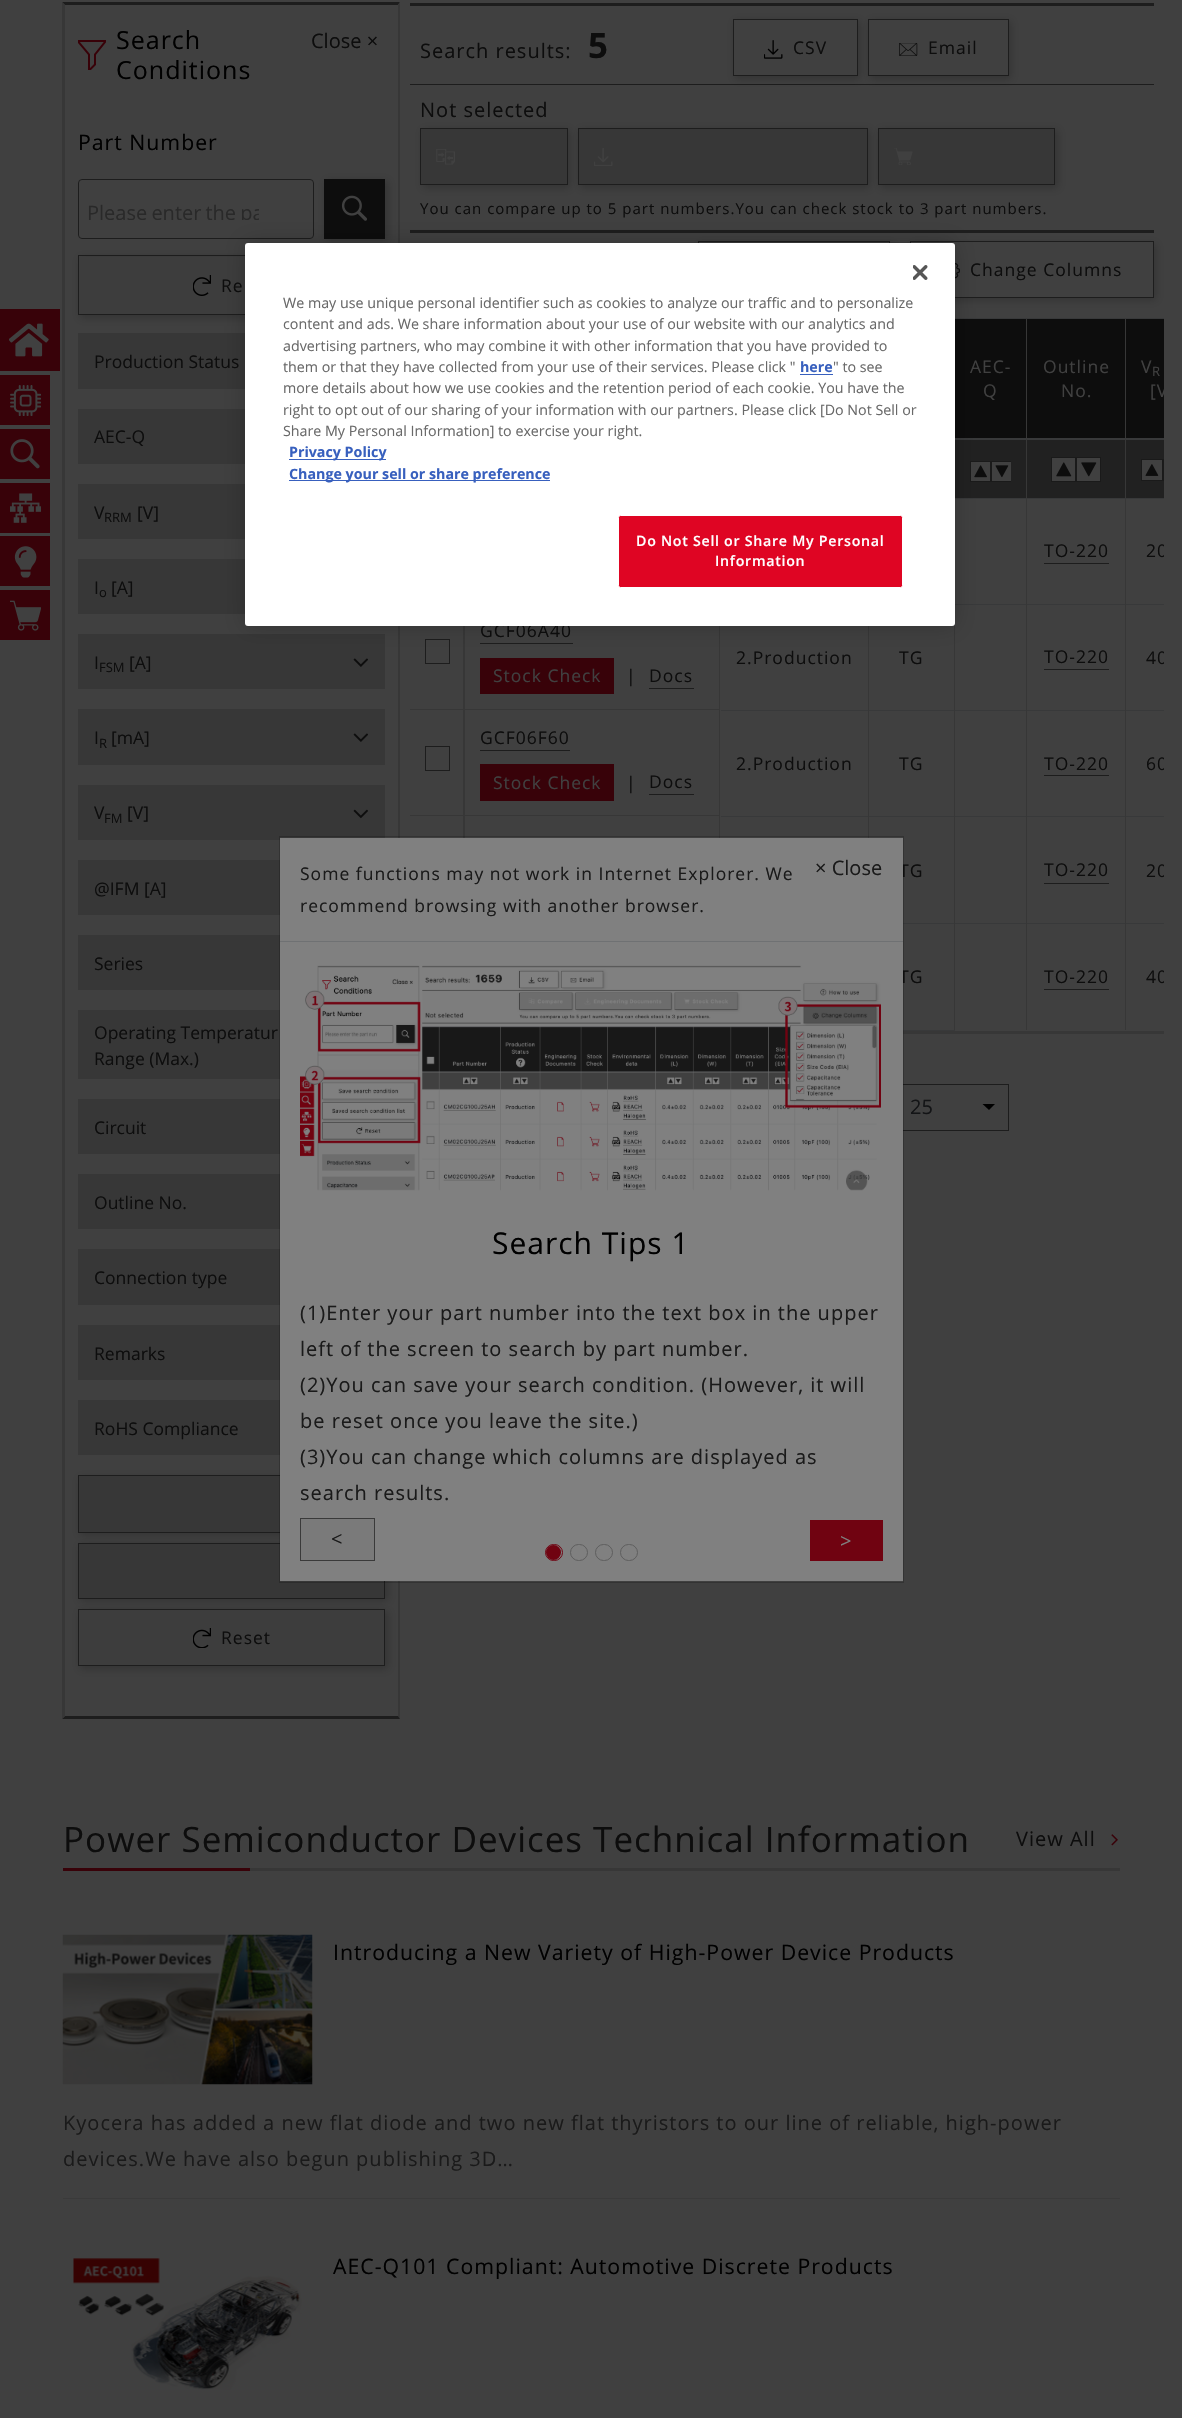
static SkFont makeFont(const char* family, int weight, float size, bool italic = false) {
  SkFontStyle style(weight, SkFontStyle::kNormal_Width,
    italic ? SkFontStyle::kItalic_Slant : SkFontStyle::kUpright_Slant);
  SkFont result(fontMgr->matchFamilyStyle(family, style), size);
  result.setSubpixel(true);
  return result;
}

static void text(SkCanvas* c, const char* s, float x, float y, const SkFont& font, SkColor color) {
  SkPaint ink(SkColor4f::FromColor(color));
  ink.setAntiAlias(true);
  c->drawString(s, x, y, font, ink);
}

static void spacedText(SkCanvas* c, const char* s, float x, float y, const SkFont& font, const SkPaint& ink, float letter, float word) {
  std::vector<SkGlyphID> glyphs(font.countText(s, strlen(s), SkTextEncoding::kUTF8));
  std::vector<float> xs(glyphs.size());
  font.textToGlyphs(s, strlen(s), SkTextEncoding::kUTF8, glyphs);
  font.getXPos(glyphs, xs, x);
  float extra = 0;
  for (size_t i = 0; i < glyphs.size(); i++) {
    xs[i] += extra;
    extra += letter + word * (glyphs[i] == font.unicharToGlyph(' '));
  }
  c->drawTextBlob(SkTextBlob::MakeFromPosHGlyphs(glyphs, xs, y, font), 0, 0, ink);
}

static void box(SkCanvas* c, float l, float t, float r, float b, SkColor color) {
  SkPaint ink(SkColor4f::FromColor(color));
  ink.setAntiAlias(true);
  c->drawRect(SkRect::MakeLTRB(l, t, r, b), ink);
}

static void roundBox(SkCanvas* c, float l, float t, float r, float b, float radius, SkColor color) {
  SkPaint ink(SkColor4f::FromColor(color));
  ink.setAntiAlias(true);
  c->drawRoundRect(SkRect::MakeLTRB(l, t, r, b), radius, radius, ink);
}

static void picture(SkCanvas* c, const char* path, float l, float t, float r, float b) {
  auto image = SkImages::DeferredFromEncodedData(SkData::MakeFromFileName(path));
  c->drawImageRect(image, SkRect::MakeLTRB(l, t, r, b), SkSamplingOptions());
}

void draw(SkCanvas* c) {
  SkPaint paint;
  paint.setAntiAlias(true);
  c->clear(0xff404040);
  box(c, 0, 309, 60, 371, 0xff380209);
  picture(c, "img_01.png", 9, 323, 49, 357);
  box(c, 0, 375, 50, 425, 0xff380209);
  picture(c, "img_02.png", 10, 385, 41, 416);
  box(c, 0, 429, 50, 479, 0xff380209);
  picture(c, "img_03.png", 10, 439, 40, 469);
  box(c, 0, 483, 50, 533, 0xff380209);
  picture(c, "img_04.png", 10, 493, 41, 523);
  box(c, 0, 536, 50, 586, 0xff380209);
  picture(c, "img_05.png", 14, 546, 37, 578);
  box(c, 0, 590, 50, 640, 0xff380209);
  picture(c, "img_06.png", 10, 600, 41, 631);
  paint.setColor(0xff1d1d1d);
  c->drawPath(SkPathBuilder().moveTo(62, 2).lineTo(400, 2).lineTo(398, 5).lineTo(65, 5).close().detach(), paint);
  paint.setColor(0xff373737);
  c->drawPath(SkPathBuilder().moveTo(400, 2).lineTo(400, 1719).lineTo(398, 1716).lineTo(398, 5).close().detach(), paint);
  paint.setColor(0xff1d1d1d);
  c->drawPath(SkPathBuilder().moveTo(400, 1719).lineTo(62, 1719).lineTo(65, 1716).lineTo(398, 1716).close().detach(), paint);
  paint.setColor(0xff373737);
  c->drawPath(SkPathBuilder().moveTo(62, 1719).lineTo(62, 2).lineTo(65, 5).lineTo(65, 1716).close().detach(), paint);
  picture(c, "img_07.png", 78, 40, 106, 70);
  SkFont face1 = makeFont("Open Sans", 400, 25);
  paint.setColor(0xff000000);
  spacedText(c, "Search", 116, 49, face1, paint, 1, 0);
  spacedText(c, "Conditions", 116, 79, face1, paint, 1, 0);
  SkFont face2 = makeFont("Open Sans", 400, 20);
  text(c, "Close ×", 311, 48, face2, 0xff0d0d0d);
  SkFont face3 = makeFont("Open Sans", 400, 21.25f);
  spacedText(c, "Part Number", 78, 150, face3, paint, 1, 0);
  paint.setStyle(SkPaint::kStroke_Style);
  paint.setStrokeWidth(1);
  paint.setColor(0xff1d1d1d);
  c->drawRoundRect(SkRect::MakeLTRB(78.5f, 179.5f, 313.5f, 238.5f), 3.5f, 3.5f, paint);
  c->save();
  c->clipRect(SkRect::MakeLTRB(88, 199, 259, 220));
  paint.setStyle(SkPaint::kFill_Style);
  paint.setColor(0xff292929);
  spacedText(c, "Please enter the pa", 87, 220, face2, paint, 0, -1);
  c->restore();
  paint.setColor(0x33000000);
  paint.setMaskFilter(SkMaskFilter::MakeBlur(kNormal_SkBlurStyle, 4));
  c->drawRect(SkRect::MakeLTRB(326, 181, 388, 241), paint);
  paint.setMaskFilter(nullptr);
  box(c, 324, 179, 385, 239, 0xff0d0d0d);
  picture(c, "img_08.png", 341, 195, 367, 221);
  paint.setMaskFilter(SkMaskFilter::MakeBlur(kNormal_SkBlurStyle, 4));
  c->drawRect(SkRect::MakeLTRB(80, 258, 388, 318), paint);
  paint.setMaskFilter(nullptr);
  box(c, 79, 257, 245, 314, 0xff3d3d3d);
  paint.setStyle(SkPaint::kStroke_Style);
  paint.setColor(0xff1d1d1d);
  c->drawRect(SkRect::MakeLTRB(78.5f, 255.5f, 384.5f, 314.5f), paint);
  picture(c, "img_09.png", 193, 275, 211, 296);
  SkFont face4 = makeFont("Open Sans", 400, 17.5f);
  paint.setStyle(SkPaint::kFill_Style);
  paint.setColor(0xff0d0d0d);
  spacedText(c, "Re", 221, 292, face4, paint, 1, 0);
  box(c, 78, 333, 245, 389, 0xff373737);
  text(c, "Production Status", 94, 368, face4, 0xff0d0d0d);
  box(c, 78, 409, 245, 464, 0xff373737);
  text(c, "AEC-Q", 94, 443, face4, 0xff0d0d0d);
  box(c, 78, 484, 245, 539, 0xff373737);
  text(c, "V", 94, 519, face4, 0xff0d0d0d);
  SkFont face5 = makeFont("Open Sans", 400, 13);
  text(c, "RRM", 104, 522, face5, 0xff0d0d0d);
  text(c, "[V]", 137, 519, face4, 0xff0d0d0d);
  box(c, 78, 559, 245, 614, 0xff373737);
  text(c, "I", 94, 594, face4, 0xff0d0d0d);
  text(c, "o", 99, 597, face5, 0xff0d0d0d);
  text(c, "[A]", 111, 594, face4, 0xff0d0d0d);
  box(c, 78, 634, 385, 689, 0xff373737);
  text(c, "I", 94, 669, face4, 0xff0d0d0d);
  text(c, "FSM", 99, 672, face5, 0xff0d0d0d);
  text(c, "[A]", 129, 669, face4, 0xff0d0d0d);
  picture(c, "img_10.png", 353, 658, 368, 667);
  box(c, 78, 709, 385, 765, 0xff373737);
  text(c, "I", 94, 744, face4, 0xff0d0d0d);
  text(c, "R", 99, 748, face5, 0xff0d0d0d);
  text(c, "[mA]", 111, 744, face4, 0xff0d0d0d);
  picture(c, "img_10.png", 353, 733, 368, 742);
  box(c, 78, 785, 385, 840, 0xff373737);
  text(c, "V", 94, 819, face4, 0xff0d0d0d);
  text(c, "FM", 104, 823, face5, 0xff0d0d0d);
  text(c, "[V]", 127, 819, face4, 0xff0d0d0d);
  picture(c, "img_11.png", 353, 809, 368, 819);
  box(c, 78, 860, 280, 915, 0xff373737);
  text(c, "@IFM [A]", 94, 895, face4, 0xff0d0d0d);
  box(c, 78, 935, 280, 990, 0xff373737);
  text(c, "Series", 94, 970, face4, 0xff0d0d0d);
  box(c, 78, 1010, 280, 1079, 0xff373737);
  text(c, "Operating Temperatur", 94, 1039, face4, 0xff0d0d0d);
  text(c, "Range (Max.)", 94, 1065, face4, 0xff0d0d0d);
  box(c, 78, 1099, 280, 1154, 0xff373737);
  text(c, "Circuit", 94, 1134, face4, 0xff0d0d0d);
  box(c, 78, 1174, 280, 1229, 0xff373737);
  text(c, "Outline No.", 94, 1209, face4, 0xff0d0d0d);
  box(c, 78, 1249, 280, 1305, 0xff373737);
  text(c, "Connection type", 94, 1284, face4, 0xff0d0d0d);
  box(c, 78, 1325, 280, 1380, 0xff373737);
  text(c, "Remarks", 94, 1360, face4, 0xff0d0d0d);
  box(c, 78, 1400, 280, 1455, 0xff373737);
  text(c, "RoHS Compliance", 94, 1435, face4, 0xff0d0d0d);
  paint.setColor(0x33000000);
  paint.setMaskFilter(SkMaskFilter::MakeBlur(kNormal_SkBlurStyle, 4));
  c->drawRect(SkRect::MakeLTRB(80, 1478, 388, 1535), paint);
  paint.setMaskFilter(nullptr);
  box(c, 79, 1476, 280, 1532, 0xff373737);
  paint.setStyle(SkPaint::kStroke_Style);
  paint.setColor(0xff1d1d1d);
  c->drawRect(SkRect::MakeLTRB(78.5f, 1475.5f, 384.5f, 1532.5f), paint);
  paint.setStyle(SkPaint::kFill_Style);
  paint.setColor(0x33000000);
  paint.setMaskFilter(SkMaskFilter::MakeBlur(kNormal_SkBlurStyle, 4));
  c->drawRect(SkRect::MakeLTRB(80, 1545, 388, 1601), paint);
  paint.setMaskFilter(nullptr);
  paint.setColor(0xff373737);
  c->drawRect(SkRect::MakeLTRB(78.5f, 1543.5f, 384.5f, 1598.5f), paint);
  paint.setStyle(SkPaint::kStroke_Style);
  paint.setColor(0xff1d1d1d);
  c->drawRect(SkRect::MakeLTRB(78.5f, 1543.5f, 384.5f, 1598.5f), paint);
  paint.setStyle(SkPaint::kFill_Style);
  paint.setColor(0x33000000);
  paint.setMaskFilter(SkMaskFilter::MakeBlur(kNormal_SkBlurStyle, 4));
  c->drawRect(SkRect::MakeLTRB(80, 1611, 388, 1669), paint);
  paint.setMaskFilter(nullptr);
  paint.setColor(0xff3d3d3d);
  c->drawRect(SkRect::MakeLTRB(78.5f, 1609.5f, 384.5f, 1665.5f), paint);
  paint.setStyle(SkPaint::kStroke_Style);
  paint.setColor(0xff1d1d1d);
  c->drawRect(SkRect::MakeLTRB(78.5f, 1609.5f, 384.5f, 1665.5f), paint);
  picture(c, "img_12.png", 193, 1628, 211, 1648);
  paint.setStyle(SkPaint::kFill_Style);
  paint.setColor(0xff0d0d0d);
  spacedText(c, "Reset", 221, 1644, face4, paint, 1, 0);
  box(c, 410, 3, 1154, 6, 0xff1d1d1d);
  box(c, 410, 84, 1154, 85, 0xff1d1d1d);
  spacedText(c, "Search results:", 420, 58, face2, paint, 1, 0);
  SkFont face6 = makeFont("Open Sans", 700, 35);
  spacedText(c, "5", 588, 58, face6, paint, 1, 0);
  paint.setColor(0x33000000);
  paint.setMaskFilter(SkMaskFilter::MakeBlur(kNormal_SkBlurStyle, 4));
  c->drawRect(SkRect::MakeLTRB(735, 21, 860, 79), paint);
  paint.setMaskFilter(nullptr);
  paint.setColor(0xff404040);
  c->drawRect(SkRect::MakeLTRB(733.5f, 19.5f, 857.5f, 75.5f), paint);
  paint.setStyle(SkPaint::kStroke_Style);
  paint.setColor(0xff1d1d1d);
  c->drawRect(SkRect::MakeLTRB(733.5f, 19.5f, 857.5f, 75.5f), paint);
  picture(c, "img_13.png", 764, 40, 783, 59);
  paint.setStyle(SkPaint::kFill_Style);
  paint.setColor(0xff0d0d0d);
  spacedText(c, "CSV", 793, 54, face4, paint, 1, 0);
  paint.setColor(0x33000000);
  paint.setMaskFilter(SkMaskFilter::MakeBlur(kNormal_SkBlurStyle, 4));
  c->drawRect(SkRect::MakeLTRB(870, 21, 1011, 79), paint);
  paint.setMaskFilter(nullptr);
  paint.setColor(0xff404040);
  c->drawRect(SkRect::MakeLTRB(868.5f, 19.5f, 1008.5f, 75.5f), paint);
  paint.setStyle(SkPaint::kStroke_Style);
  paint.setColor(0xff1d1d1d);
  c->drawRect(SkRect::MakeLTRB(868.5f, 19.5f, 1008.5f, 75.5f), paint);
  picture(c, "img_14.png", 899, 43, 918, 56);
  paint.setStyle(SkPaint::kFill_Style);
  paint.setColor(0xff0d0d0d);
  spacedText(c, "Email", 928, 54, face4, paint, 1, 0);
  box(c, 410, 230, 1154, 233, 0xff1d1d1d);
  spacedText(c, "Not selected", 420, 117, face2, paint, 1, 0);
  paint.setColor(0x33000000);
  paint.setMaskFilter(SkMaskFilter::MakeBlur(kNormal_SkBlurStyle, 4));
  c->drawRect(SkRect::MakeLTRB(423, 130, 570, 188), paint);
  paint.setMaskFilter(nullptr);
  paint.setColor(0xff373737);
  c->drawRect(SkRect::MakeLTRB(420.5f, 128.5f, 567.5f, 184.5f), paint);
  paint.setStyle(SkPaint::kStroke_Style);
  paint.setColor(0xff1d1d1d);
  c->drawRect(SkRect::MakeLTRB(420.5f, 128.5f, 567.5f, 184.5f), paint);
  picture(c, "img_15.png", 436, 149, 455, 165);
  paint.setStyle(SkPaint::kFill_Style);
  paint.setColor(0x33000000);
  paint.setMaskFilter(SkMaskFilter::MakeBlur(kNormal_SkBlurStyle, 4));
  c->drawRect(SkRect::MakeLTRB(580, 130, 870, 188), paint);
  paint.setMaskFilter(nullptr);
  paint.setColor(0xff373737);
  c->drawRect(SkRect::MakeLTRB(578.5f, 128.5f, 867.5f, 184.5f), paint);
  paint.setStyle(SkPaint::kStroke_Style);
  paint.setColor(0xff1d1d1d);
  c->drawRect(SkRect::MakeLTRB(578.5f, 128.5f, 867.5f, 184.5f), paint);
  picture(c, "img_16.png", 594, 148, 613, 166);
  paint.setStyle(SkPaint::kFill_Style);
  paint.setColor(0x33000000);
  paint.setMaskFilter(SkMaskFilter::MakeBlur(kNormal_SkBlurStyle, 4));
  c->drawRect(SkRect::MakeLTRB(880, 130, 1058, 188), paint);
  paint.setMaskFilter(nullptr);
  paint.setColor(0xff373737);
  c->drawRect(SkRect::MakeLTRB(878.5f, 128.5f, 1054.5f, 184.5f), paint);
  paint.setStyle(SkPaint::kStroke_Style);
  paint.setColor(0xff1d1d1d);
  c->drawRect(SkRect::MakeLTRB(878.5f, 128.5f, 1054.5f, 184.5f), paint);
  picture(c, "img_17.png", 894, 148, 913, 165);
  SkFont face7 = makeFont("Open Sans", 400, 15);
  paint.setStyle(SkPaint::kFill_Style);
  paint.setColor(0xff0d0d0d);
  spacedText(c, "You can compare up to 5 part numbers.You can check stock to 3 part numbers.", 420, 214, face7, paint, 1, 0);
  paint.setColor(0x33000000);
  paint.setMaskFilter(SkMaskFilter::MakeBlur(kNormal_SkBlurStyle, 4));
  c->drawRect(SkRect::MakeLTRB(700, 244, 893, 301), paint);
  paint.setMaskFilter(nullptr);
  paint.setStyle(SkPaint::kStroke_Style);
  paint.setColor(0xff1d1d1d);
  c->drawRect(SkRect::MakeLTRB(698.5f, 241.5f, 889.5f, 298.5f), paint);
  paint.setStyle(SkPaint::kFill_Style);
  paint.setColor(0x33000000);
  paint.setMaskFilter(SkMaskFilter::MakeBlur(kNormal_SkBlurStyle, 4));
  c->drawRect(SkRect::MakeLTRB(913, 244, 1156, 300), paint);
  paint.setMaskFilter(nullptr);
  paint.setColor(0xff404040);
  c->drawRect(SkRect::MakeLTRB(910.5f, 241.5f, 1153.5f, 297.5f), paint);
  paint.setStyle(SkPaint::kStroke_Style);
  paint.setColor(0xff1d1d1d);
  c->drawRect(SkRect::MakeLTRB(910.5f, 241.5f, 1153.5f, 297.5f), paint);
  picture(c, "img_18.png", 955, 263, 960, 279);
  paint.setStyle(SkPaint::kFill_Style);
  paint.setColor(0xff0d0d0d);
  spacedText(c, "Change Columns", 970, 276, face4, paint, 1, 0);
  spacedText(c, "TG", 899, 877, face4, paint, 1, 0);
  spacedText(c, "TG", 899, 983, face4, paint, 1, 0);
  paint.setColor(0xff000000);
  c->drawPath(SkPathBuilder().moveTo(982.5f, 1104).lineTo(989, 1110).lineTo(995, 1104).close().detach(), paint);
  paint.setStyle(SkPaint::kStroke_Style);
  paint.setColor(0xff1d1d1d);
  c->drawRect(SkRect::MakeLTRB(843.5f, 1084.5f, 1008.5f, 1130.5f), paint);
  box(c, 280, 838, 903, 1581, 0xff808080);
  box(c, 903, 1031, 1164, 1034, 0xff373737);
  box(c, 410, 815, 720, 816, 0xff373737);
  box(c, 463, 815, 465, 838, 0xff373737);
  box(c, 719, 815, 720, 838, 0xff373737);
  box(c, 721, 816, 1164, 817, 0xff38393a);
  box(c, 868, 816, 869, 838, 0xff373737);
  box(c, 903, 923, 1164, 924, 0xff38393a);
  box(c, 903, 1030, 955, 1031, 0xff38393a);
  paint.setColor(0x33000000);
  c->drawRect(SkRect::MakeLTRB(279.5f, 836.5f, 903.5f, 1582.5f), paint);
  box(c, 280, 941, 903, 942, 0xff6f7173);
  paint.setStyle(SkPaint::kFill_Style);
  paint.setColor(0xff1a1a1a);
  spacedText(c, "Some functions may not work in Internet Explorer. We", 300, 880, face4, paint, 1, 0);
  spacedText(c, "recommend browsing with another browser.", 300, 912, face4, paint, 1, 0);
  text(c, "× Close", 815, 875, face2, 0xff1a1a1a);
  picture(c, "img_19.png", 300, 965, 881, 1191);
  SkFont face8 = makeFont("Open Sans", 400, 30);
  paint.setColor(0xff000000);
  spacedText(c, "Search Tips 1", 492, 1254, face8, paint, 1, 0);
  paint.setColor(0xff1a1a1a);
  spacedText(c, "(1)Enter your part number into the text box in the upper", 300, 1320, face2, paint, 1, 0);
  spacedText(c, "left of the screen to search by part number.", 300, 1356, face2, paint, 1, 0);
  spacedText(c, "(2)You can save your search condition. (However, it will", 300, 1392, face2, paint, 1, 0);
  spacedText(c, "be reset once you leave the site.)", 300, 1428, face2, paint, 1, 0);
  spacedText(c, "(3)You can change which columns are displayed as", 300, 1464, face2, paint, 1, 0);
  spacedText(c, "search results.", 300, 1500, face2, paint, 1, 0);
  paint.setColor(0xff7a7a7a);
  c->drawRect(SkRect::MakeLTRB(300.5f, 1518.5f, 374.5f, 1560.5f), paint);
  paint.setStyle(SkPaint::kStroke_Style);
  paint.setColor(0xff3a3a3a);
  c->drawRect(SkRect::MakeLTRB(300.5f, 1518.5f, 374.5f, 1560.5f), paint);
  paint.setStyle(SkPaint::kFill_Style);
  paint.setColor(0xff1a1a1a);
  spacedText(c, "<", 331, 1546, face2, paint, 1, 0);
  box(c, 810, 1520, 883, 1561, 0xff700311);
  paint.setColor(0xff808080);
  spacedText(c, ">", 840, 1548, face2, paint, 1, 0);
  paint.setColor(0xff700311);
  c->drawCircle(553.5f, 1552.5f, 7.5f, paint);
  paint.setStyle(SkPaint::kStroke_Style);
  c->drawRoundRect(SkRect::MakeLTRB(545.5f, 1544.5f, 562.5f, 1560.5f), 8, 8, paint);
  paint.setColor(0xff5d5d5d);
  c->drawRoundRect(SkRect::MakeLTRB(570.5f, 1544.5f, 587.5f, 1560.5f), 8, 8, paint);
  c->drawRoundRect(SkRect::MakeLTRB(595.5f, 1544.5f, 612.5f, 1560.5f), 8, 8, paint);
  c->drawRoundRect(SkRect::MakeLTRB(620.5f, 1544.5f, 637.5f, 1560.5f), 8, 8, paint);
  box(c, 955, 319, 1125, 438, 0xff0d0d0d);
  box(c, 955, 318, 1164, 319, 0xff38393a);
  box(c, 1026, 318, 1027, 439, 0xff373737);
  box(c, 955, 438, 1028, 440, 0xff38393a);
  paint.setStyle(SkPaint::kFill_Style);
  paint.setColor(0xff404040);
  spacedText(c, "AEC-", 970, 373, face4, paint, 1, 0);
  spacedText(c, "Q", 983, 397, face4, paint, 1, 0);
  box(c, 1125, 318, 1126, 439, 0xff373737);
  box(c, 1028, 438, 1164, 439, 0xff38393a);
  spacedText(c, "Outline", 1043, 373, face4, paint, 1, 0);
  spacedText(c, "No.", 1061, 397, face4, paint, 1, 0);
  box(c, 1126, 319, 1164, 438, 0xff0d0d0d);
  spacedText(c, "V", 1141, 373, face4, paint, 1, 0);
  spacedText(c, "R", 1152, 376, face5, paint, 1, 0);
  c->save();
  c->clipRect(SkRect::MakeLTRB(410, 318, 1164, 1034));
  spacedText(c, "[V", 1150, 397, face4, paint, 1, 0);
  c->restore();
  box(c, 955, 440, 1164, 498, 0xff212121);
  box(c, 1026, 439, 1027, 498, 0xff373737);
  picture(c, "img_20.png", 970, 461, 991, 482);
  picture(c, "img_21.png", 991, 461, 1011, 482);
  box(c, 1028, 439, 1164, 440, 0xff38393a);
  box(c, 1125, 439, 1126, 498, 0xff373737);
  picture(c, "img_22.png", 1051, 457, 1076, 482);
  picture(c, "img_23.png", 1076, 457, 1101, 482);
  picture(c, "img_24.png", 1141, 459, 1163, 481);
  box(c, 1163, 459, 1164, 481, 0xff1b1b1b);
  box(c, 955, 498, 1164, 499, 0xff38393a);
  box(c, 1026, 498, 1027, 604, 0xff373737);
  box(c, 1125, 498, 1126, 604, 0xff373737);
  paint.setColor(0xff0d0d0d);
  spacedText(c, "TO-220", 1044, 557, face4, paint, 1, 0);
  box(c, 1044, 563, 1109, 564, 0xff1d1d1d);
  c->save();
  c->clipRect(SkRect::MakeLTRB(410, 318, 1164, 1034));
  spacedText(c, "20", 1146, 557, face4, paint, 1, 0);
  c->restore();
  paint.setStyle(SkPaint::kStroke_Style);
  paint.setColor(0xff1d1d1d);
  c->drawRect(SkRect::MakeLTRB(425.5f, 639.5f, 449.5f, 663.5f), paint);
  box(c, 463, 626, 465, 709, 0xff373737);
  paint.setStyle(SkPaint::kFill_Style);
  paint.setColor(0xff0d0d0d);
  spacedText(c, "GCF06A40", 480, 637, face4, paint, 1, 0);
  box(c, 480, 643, 573, 644, 0xff1d1d1d);
  box(c, 719, 626, 720, 709, 0xff373737);
  box(c, 480, 658, 614, 694, 0xff380209);
  paint.setColor(0xff404040);
  spacedText(c, "Stock Check", 493, 682, face4, paint, 1, 0);
  paint.setColor(0xff0d0d0d);
  spacedText(c, "|", 626, 682, face4, paint, 1, 0);
  spacedText(c, "Docs", 649, 682, face4, paint, 1, 0);
  box(c, 649, 688, 694, 689, 0xff1d1d1d);
  box(c, 868, 626, 869, 710, 0xff373737);
  spacedText(c, "2.Production", 736, 664, face4, paint, 1, 0);
  box(c, 955, 604, 1164, 605, 0xff38393a);
  box(c, 1026, 604, 1027, 710, 0xff373737);
  box(c, 954, 623, 955, 710, 0xff373737);
  spacedText(c, "TG", 899, 664, face4, paint, 1, 0);
  box(c, 1125, 604, 1126, 710, 0xff373737);
  spacedText(c, "TO-220", 1044, 663, face4, paint, 1, 0);
  box(c, 1044, 669, 1109, 670, 0xff1d1d1d);
  c->save();
  c->clipRect(SkRect::MakeLTRB(410, 318, 1164, 1034));
  spacedText(c, "40", 1146, 664, face4, paint, 1, 0);
  c->restore();
  box(c, 410, 709, 720, 710, 0xff373737);
  box(c, 463, 709, 465, 815, 0xff373737);
  paint.setStyle(SkPaint::kStroke_Style);
  paint.setColor(0xff1d1d1d);
  c->drawRect(SkRect::MakeLTRB(425.5f, 746.5f, 449.5f, 770.5f), paint);
  box(c, 721, 710, 1164, 711, 0xff38393a);
  box(c, 1026, 710, 1027, 816, 0xff373737);
  paint.setStyle(SkPaint::kFill_Style);
  paint.setColor(0xff0d0d0d);
  spacedText(c, "GCF06F60", 480, 744, face4, paint, 1, 0);
  box(c, 480, 750, 570, 751, 0xff1d1d1d);
  box(c, 719, 709, 720, 815, 0xff373737);
  box(c, 480, 764, 614, 801, 0xff380209);
  paint.setColor(0xff404040);
  spacedText(c, "Stock Check", 493, 789, face4, paint, 1, 0);
  paint.setColor(0xff0d0d0d);
  spacedText(c, "|", 626, 789, face4, paint, 1, 0);
  spacedText(c, "Docs", 649, 788, face4, paint, 1, 0);
  box(c, 649, 794, 694, 795, 0xff1d1d1d);
  box(c, 868, 710, 869, 816, 0xff373737);
  spacedText(c, "2.Production", 736, 770, face4, paint, 1, 0);
  box(c, 954, 710, 955, 816, 0xff373737);
  spacedText(c, "TG", 899, 770, face4, paint, 1, 0);
  box(c, 1125, 710, 1126, 816, 0xff373737);
  spacedText(c, "TO-220", 1044, 770, face4, paint, 1, 0);
  box(c, 1044, 775, 1109, 776, 0xff1d1d1d);
  c->save();
  c->clipRect(SkRect::MakeLTRB(410, 318, 1164, 1034));
  spacedText(c, "60", 1146, 770, face4, paint, 1, 0);
  c->restore();
  box(c, 954, 816, 955, 923, 0xff373737);
  box(c, 1026, 816, 1027, 923, 0xff373737);
  box(c, 1125, 816, 1126, 923, 0xff373737);
  spacedText(c, "TO-220", 1044, 876, face4, paint, 1, 0);
  box(c, 1044, 883, 1109, 884, 0xff1d1d1d);
  c->save();
  c->clipRect(SkRect::MakeLTRB(410, 318, 1164, 1034));
  spacedText(c, "20", 1146, 877, face4, paint, 1, 0);
  c->restore();
  box(c, 954, 923, 955, 1030, 0xff373737);
  box(c, 1026, 923, 1027, 1030, 0xff373737);
  box(c, 1125, 923, 1126, 1030, 0xff373737);
  spacedText(c, "TO-220", 1044, 983, face4, paint, 1, 0);
  box(c, 1044, 989, 1109, 990, 0xff1d1d1d);
  c->save();
  c->clipRect(SkRect::MakeLTRB(410, 318, 1164, 1034));
  spacedText(c, "40", 1146, 983, face4, paint, 1, 0);
  c->restore();
  text(c, "25", 910, 1114, face2, 0xff131416);
  box(c, 250, 1868, 1120, 1871, 0xff373737);
  SkFont face9 = makeFont("Open Sans", 400, 35);
  spacedText(c, "Power Semiconductor Devices Technical Information", 63, 1852, face9, paint, 1, 0);
  spacedText(c, "View All", 1016, 1846, face2, paint, 1, 0);
  picture(c, "img_25.png", 1111, 1834, 1118, 1846);
  box(c, 63, 1868, 250, 1871, 0xff380209);
  box(c, 63, 2198, 1120, 2199, 0xff3a3a3a);
  picture(c, "img_26.png", 62, 1934, 313, 2085);
  paint.setColor(0xff000000);
  spacedText(c, "Introducing a New Variety of High-Power Device Products", 333, 1960, face3, paint, 1, 0);
  paint.setColor(0xff1a1a1a);
  spacedText(c, "Kyocera has added a new flat diode and two new flat thyristors to our line of reliable, high-power", 63, 2130, face2, paint, 1, 0);
  spacedText(c, "devices.We have also begun publishing 3D…", 63, 2166, face2, paint, 1, 0);
  picture(c, "img_27.png", 73, 2258, 302, 2390);
  paint.setColor(0xff000000);
  spacedText(c, "AEC-Q101 Compliant: Automotive Discrete Products", 333, 2274, face3, paint, 1, 0);
  paint.setColor(0x33000000);
  paint.setMaskFilter(SkMaskFilter::MakeBlur(kNormal_SkBlurStyle, 11));
  c->drawRoundRect(SkRect::MakeLTRB(245, 243, 955, 626), 3, 3, paint);
  paint.setMaskFilter(nullptr);
  roundBox(c, 245, 243, 955, 626, 3, 0xffffffff);
  picture(c, "img_28.png", 913, 265, 928, 280);
  SkFont face10 = makeFont("Open Sans", 400, 14.25f);
  text(c, "We may use unique personal identifier such as cookies to analyze our traffic and to personalize", 283, 308, face10, 0xff696969);
  text(c, "content and ads. We share information about your use of our website with our analytics and", 283, 329, face10, 0xff696969);
  text(c, "advertising partners, who may combine it with other information that you have provided to", 283, 351, face10, 0xff696969);
  text(c, "them or that they have collected from your use of their services. Please click \"", 283, 372, face10, 0xff696969);
  SkFont face11 = makeFont("Open Sans", 700, 14.25f);
  text(c, "here", 800, 372, face11, 0xff3860be);
  box(c, 800, 374, 833, 375, 0xff3860be);
  text(c, "\" to see", 833, 372, face10, 0xff696969);
  text(c, "more details about how we use cookies and the retention period of each cookie. You have the", 283, 393, face10, 0xff696969);
  text(c, "right to opt out of our sharing of your information with our partners. Please click [Do Not Sell or", 283, 415, face10, 0xff696969);
  text(c, "Share My Personal Information] to exercise your right.", 283, 436, face10, 0xff696969);
  box(c, 289, 459, 386, 460, 0xff3860be);
  text(c, "Privacy Policy", 289, 457, face11, 0xff3860be);
  box(c, 289, 480, 550, 481, 0xff3860be);
  text(c, "Change your sell or share preference", 289, 479, face11, 0xff3860be);
  paint.setColor(0xffdf0523);
  c->drawRoundRect(SkRect::MakeLTRB(618.5f, 515.5f, 902.5f, 587.5f), 2, 2, paint);
  paint.setStyle(SkPaint::kStroke_Style);
  paint.setColor(0xffffffff);
  c->drawRoundRect(SkRect::MakeLTRB(618.5f, 515.5f, 902.5f, 587.5f), 2, 2, paint);
  SkFont face12 = makeFont("Open Sans", 600, 14.25f);
  paint.setStyle(SkPaint::kFill_Style);
  spacedText(c, "Do Not Sell or Share My Personal", 636, 546, face12, paint, 0.7f, 0);
  spacedText(c, "Information", 715, 566, face12, paint, 0.7f, 0);
}
